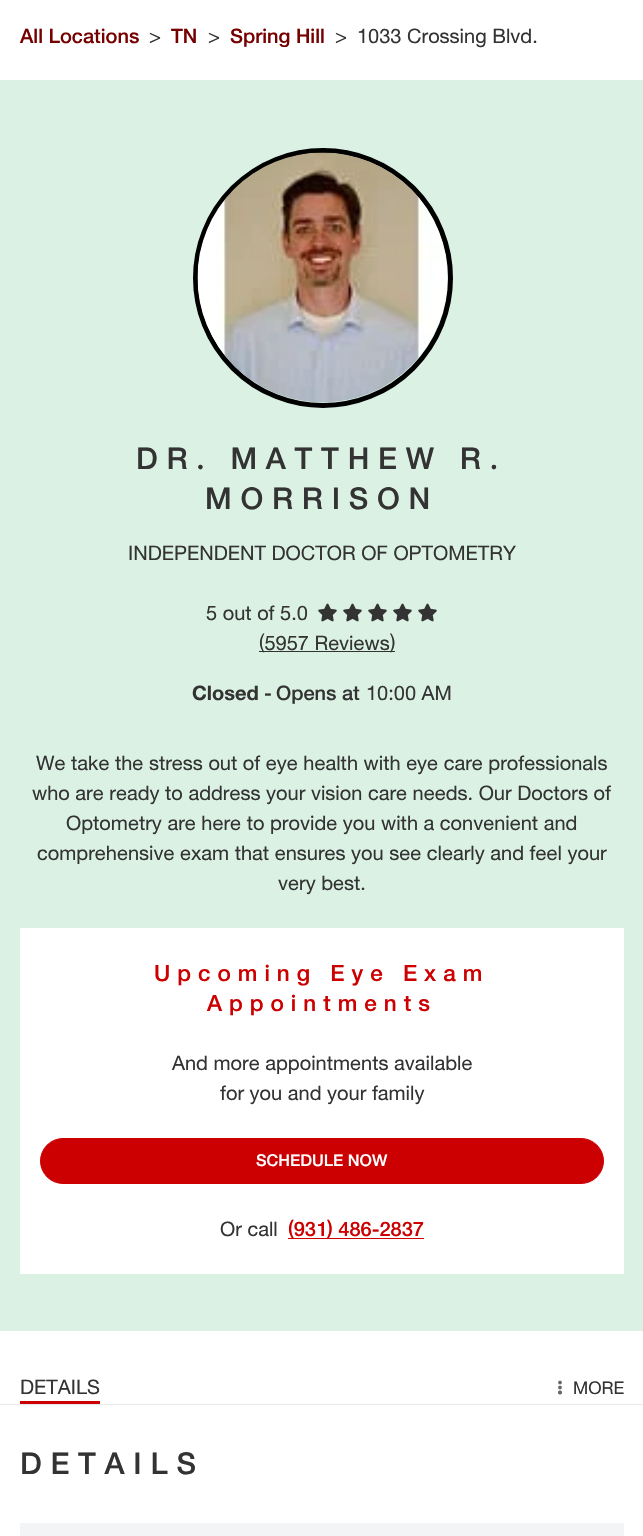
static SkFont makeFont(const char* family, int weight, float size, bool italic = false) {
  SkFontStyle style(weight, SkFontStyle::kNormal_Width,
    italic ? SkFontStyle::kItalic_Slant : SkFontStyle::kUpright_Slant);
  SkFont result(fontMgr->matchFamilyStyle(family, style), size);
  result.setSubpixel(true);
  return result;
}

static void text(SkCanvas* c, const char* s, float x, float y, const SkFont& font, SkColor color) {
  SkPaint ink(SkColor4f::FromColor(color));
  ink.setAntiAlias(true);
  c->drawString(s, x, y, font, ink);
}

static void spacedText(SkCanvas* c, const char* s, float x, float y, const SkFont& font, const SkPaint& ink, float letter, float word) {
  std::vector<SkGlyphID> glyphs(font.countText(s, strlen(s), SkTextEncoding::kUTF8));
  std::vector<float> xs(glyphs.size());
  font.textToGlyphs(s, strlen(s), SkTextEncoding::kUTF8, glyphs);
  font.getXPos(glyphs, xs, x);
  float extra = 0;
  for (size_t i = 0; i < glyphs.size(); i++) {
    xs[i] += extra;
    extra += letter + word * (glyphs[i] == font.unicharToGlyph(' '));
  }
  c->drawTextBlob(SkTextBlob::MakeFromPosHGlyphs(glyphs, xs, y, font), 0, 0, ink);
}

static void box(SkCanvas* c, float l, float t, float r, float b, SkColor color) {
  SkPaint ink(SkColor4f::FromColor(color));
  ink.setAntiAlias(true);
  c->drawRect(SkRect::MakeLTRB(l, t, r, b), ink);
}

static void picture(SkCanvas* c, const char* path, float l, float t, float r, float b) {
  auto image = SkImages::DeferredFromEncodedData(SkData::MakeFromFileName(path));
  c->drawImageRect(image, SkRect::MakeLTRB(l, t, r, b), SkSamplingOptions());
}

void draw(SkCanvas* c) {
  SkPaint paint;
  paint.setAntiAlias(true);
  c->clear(0xffffffff);
  SkFont face1 = makeFont("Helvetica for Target", 500, 20);
  text(c, "All Locations", 20, 43, face1, 0xff760000);
  SkFont face2 = makeFont("Helvetica for Target", 400, 20);
  text(c, ">", 149, 43, face2, 0xff333333);
  text(c, "TN", 171, 43, face1, 0xff760000);
  text(c, ">", 208, 43, face2, 0xff333333);
  text(c, "Spring Hill", 230, 43, face1, 0xff760000);
  text(c, ">", 335, 43, face2, 0xff333333);
  text(c, "1033 Crossing Blvd.", 357, 43, face2, 0xff333333);
  box(c, 0, 80, 643, 1331, 0xffdaf1e4);
  paint.setStyle(SkPaint::kStroke_Style);
  paint.setStrokeWidth(5);
  paint.setColor(0xff000000);
  c->drawCircle(323, 278, 127.5f, paint);
  picture(c, "img_01.png", 197, 152, 448, 403);
  SkFont face3 = makeFont("Helvetica for Target", 500, 30);
  paint.setStyle(SkPaint::kFill_Style);
  paint.setColor(0xff333333);
  spacedText(c, "DR. MATTHEW R.", 136, 469, face3, paint, 8.75f, 0);
  spacedText(c, "MORRISON", 205, 509, face3, paint, 8.75f, 0);
  text(c, "INDEPENDENT DOCTOR OF OPTOMETRY", 128, 560, face2, 0xff333333);
  text(c, "5 out of 5.0", 206, 620, face2, 0xff333333);
  picture(c, "img_02.png", 318, 603, 337, 622);
  picture(c, "img_02.png", 343, 603, 362, 622);
  picture(c, "img_02.png", 368, 603, 387, 622);
  picture(c, "img_02.png", 393, 603, 412, 622);
  picture(c, "img_02.png", 418, 603, 437, 622);
  box(c, 259, 651, 264, 652, 0xff333333);
  text(c, "(5957 Reviews", 259, 650, face2, 0xff333333);
  box(c, 264, 651, 395, 652, 0xff333333);
  text(c, ")", 390, 650, face2, 0xff333333);
  SkFont face4 = makeFont("Helvetica for Target", 700, 20);
  text(c, "Closed", 192, 700, face4, 0xff333333);
  text(c, "-", 264, 700, face1, 0xff333333);
  text(c, "Opens at", 276, 700, face1, 0xff333333);
  text(c, "10:00 AM", 366, 700, face2, 0xff333333);
  text(c, "We take the stress out of eye health with eye care professionals", 36, 770, face2, 0xff333333);
  text(c, "who are ready to address your vision care needs. Our Doctors of", 32, 800, face2, 0xff333333);
  text(c, "Optometry are here to provide you with a convenient and", 66, 830, face2, 0xff333333);
  text(c, "comprehensive exam that ensures you see clearly and feel your", 37, 860, face2, 0xff333333);
  text(c, "very best.", 278, 890, face2, 0xff333333);
  box(c, 20, 928, 624, 1274, 0xffffffff);
  SkFont face5 = makeFont("Helvetica for Target", 500, 22.5f);
  paint.setColor(0xffcc0000);
  spacedText(c, "Upcoming Eye Exam", 154, 981, face5, paint, 7, 0);
  spacedText(c, "Appointments", 207, 1011, face5, paint, 7, 0);
  text(c, "And more appointments available", 172, 1070, face2, 0xff333333);
  text(c, "for you and your family", 220, 1100, face2, 0xff333333);
  c->drawRoundRect(SkRect::MakeLTRB(40.5f, 1138.5f, 603.5f, 1183.5f), 22.5f, 22.5f, paint);
  paint.setStyle(SkPaint::kStroke_Style);
  paint.setStrokeWidth(1);
  c->drawRoundRect(SkRect::MakeLTRB(40.5f, 1138.5f, 603.5f, 1183.5f), 22.5f, 22.5f, paint);
  SkFont face6 = makeFont("Helvetica for Target", 500, 16.25f);
  text(c, "SCHEDULE NOW", 256, 1166, face6, 0xffffffff);
  text(c, "Or call", 220, 1236, face2, 0xff333333);
  box(c, 288, 1238, 424, 1239, 0xffcc0000);
  text(c, "(931) 486-2837", 288, 1236, face1, 0xffcc0000);
  box(c, 0, 1404, 643, 1405, 0xffe8eaec);
  box(c, 20, 1401, 100, 1404, 0xffcc0000);
  text(c, "DETAILS", 20, 1394, face2, 0xff333333);
  picture(c, "img_03.png", 558, 1380, 562, 1395);
  SkFont face7 = makeFont("Helvetica for Target", 400, 17.5f);
  text(c, "MORE", 573, 1394, face7, 0xff333333);
  paint.setStyle(SkPaint::kFill_Style);
  paint.setColor(0xff333333);
  spacedText(c, "DETAILS", 20, 1474, face3, paint, 8.75f, 0);
  box(c, 20, 1523, 624, 1536, 0xfff3f4f5);
}
